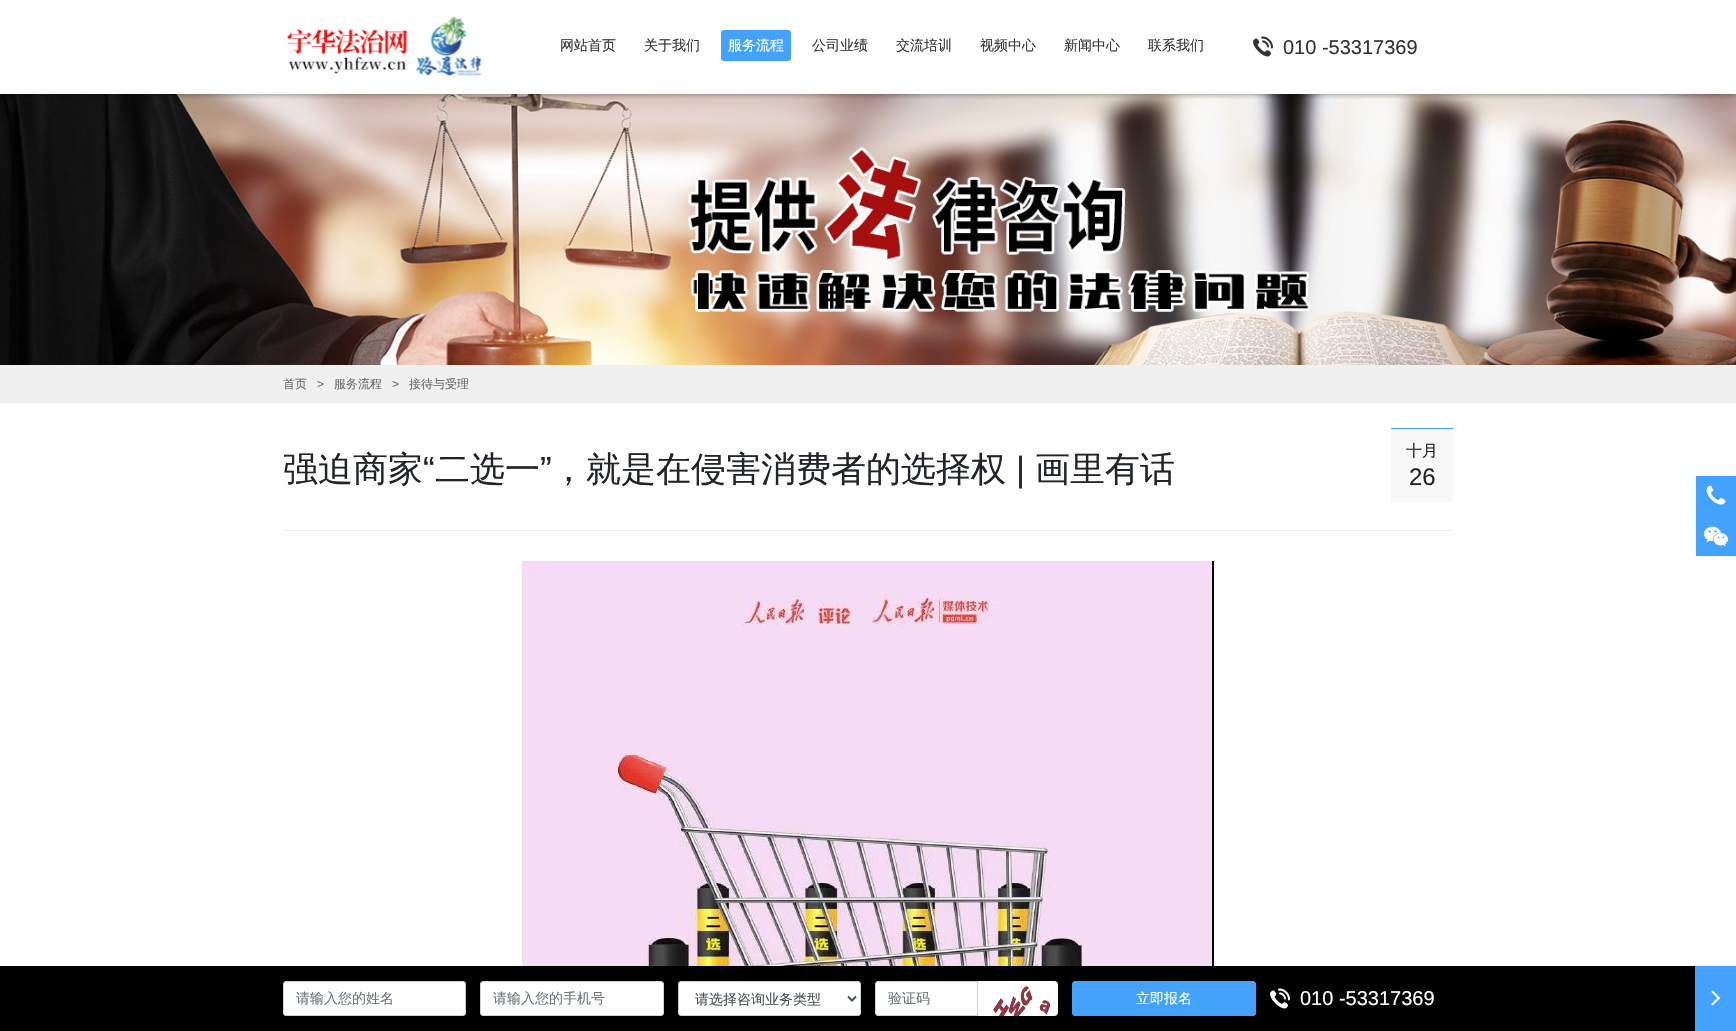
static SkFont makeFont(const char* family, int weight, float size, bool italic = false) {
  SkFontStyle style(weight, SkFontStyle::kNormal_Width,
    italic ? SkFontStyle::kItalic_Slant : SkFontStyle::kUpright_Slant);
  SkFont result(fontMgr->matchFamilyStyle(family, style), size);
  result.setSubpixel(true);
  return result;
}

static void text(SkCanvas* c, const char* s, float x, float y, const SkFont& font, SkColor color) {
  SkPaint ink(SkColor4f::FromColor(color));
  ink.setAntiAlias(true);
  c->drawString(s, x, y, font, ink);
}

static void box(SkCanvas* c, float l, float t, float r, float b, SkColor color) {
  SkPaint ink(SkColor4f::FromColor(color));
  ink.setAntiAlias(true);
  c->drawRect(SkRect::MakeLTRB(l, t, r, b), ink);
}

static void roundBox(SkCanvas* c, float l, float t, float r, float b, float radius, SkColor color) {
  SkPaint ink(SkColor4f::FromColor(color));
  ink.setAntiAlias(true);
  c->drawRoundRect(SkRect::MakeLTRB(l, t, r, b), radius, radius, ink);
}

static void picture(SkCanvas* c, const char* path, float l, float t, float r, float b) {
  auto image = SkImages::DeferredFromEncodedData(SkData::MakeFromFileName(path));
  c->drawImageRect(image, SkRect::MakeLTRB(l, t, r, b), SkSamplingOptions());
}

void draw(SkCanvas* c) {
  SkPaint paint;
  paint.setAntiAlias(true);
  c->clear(0xffffffff);
  picture(c, "img_03.png", 0, 94, 1736, 365);
  c->save();
  c->clipRect(SkRect::MakeLTRB(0, 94, 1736, 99));
  paint.setColor(0x59000000);
  paint.setMaskFilter(SkMaskFilter::MakeBlur(kNormal_SkBlurStyle, 2.5f));
  c->drawRect(SkRect::MakeLTRB(0, 1, 1736, 95), paint);
  paint.setMaskFilter(nullptr);
  c->restore();
  picture(c, "img_01.png", 287, 16, 482, 76);
  SkFont face1 = makeFont("WenQuanYi Zen Hei", 500, 14);
  text(c, "网站首页", 560, 50, face1, 0xff333333);
  text(c, "关于我们", 644, 50, face1, 0xff333333);
  roundBox(c, 721, 30, 791, 61, 3, 0xff44a2ff);
  text(c, "服务流程", 728, 50, face1, 0xffffffff);
  text(c, "公司业绩", 812, 50, face1, 0xff333333);
  text(c, "交流培训", 896, 50, face1, 0xff333333);
  text(c, "视频中心", 980, 50, face1, 0xff333333);
  text(c, "新闻中心", 1064, 50, face1, 0xff333333);
  text(c, "联系我们", 1148, 50, face1, 0xff333333);
  picture(c, "img_02.png", 1253, 36, 1273, 57);
  SkFont face2 = makeFont("Liberation Sans", 400, 20);
  text(c, "010 -53317369", 1283, 54, face2, 0xff333333);
  box(c, 0, 365, 1736, 403, 0xfff0f0f0);
  SkFont face3 = makeFont("WenQuanYi Zen Hei", 500, 12);
  text(c, "首页", 283, 388, face3, 0xff676767);
  SkFont face4 = makeFont("Liberation Sans", 400, 12);
  text(c, ">", 317, 388, face4, 0xff676767);
  text(c, "服务流程", 334, 388, face3, 0xff676767);
  text(c, ">", 392, 388, face4, 0xff676767);
  text(c, "接待与受理", 409, 388, face3, 0xff676767);
  box(c, 283, 530, 1453, 531, 0xfff1f1f1);
  SkFont face5 = makeFont("WenQuanYi Zen Hei", 500, 35);
  text(c, "强迫商家", 283, 481, face5, 0xff212529);
  SkFont face6 = makeFont("Liberation Sans", 400, 35);
  text(c, "“", 423, 481, face6, 0xff212529);
  text(c, "二选一", 435, 481, face5, 0xff212529);
  text(c, "”", 540, 481, face6, 0xff212529);
  text(c, "，就是在侵害消费者的选择权", 551, 481, face5, 0xff212529);
  text(c, "|", 1016, 481, face6, 0xff212529);
  text(c, "画里有话", 1035, 481, face5, 0xff212529);
  box(c, 1391, 429, 1453, 502, 0xfff8f8f8);
  box(c, 1391, 428, 1453, 429, 0xff44a2ff);
  SkFont face7 = makeFont("WenQuanYi Zen Hei", 500, 16);
  text(c, "十月", 1406, 456, face7, 0xff212529);
  SkFont face8 = makeFont("Liberation Sans", 400, 24);
  text(c, "26", 1409, 485, face8, 0xff212529);
  picture(c, "img_04.png", 522, 561, 1214, 966);
  box(c, 1696, 476, 1736, 556, 0xff44a2ff);
  picture(c, "img_05.png", 1706, 485, 1726, 505);
  picture(c, "img_06.png", 1704, 526, 1728, 547);
  box(c, 0, 966, 1695, 1031, 0xff000000);
  paint.setColor(0xffffffff);
  c->drawRoundRect(SkRect::MakeLTRB(283.5f, 981.5f, 465.5f, 1015.5f), 2.5f, 2.5f, paint);
  paint.setStyle(SkPaint::kStroke_Style);
  paint.setStrokeWidth(1);
  paint.setColor(0xffced4da);
  c->drawRoundRect(SkRect::MakeLTRB(283.5f, 981.5f, 465.5f, 1015.5f), 2.5f, 2.5f, paint);
  text(c, "请输入您的姓名", 296, 1003, face1, 0xff6c757d);
  paint.setStyle(SkPaint::kFill_Style);
  paint.setColor(0xffffffff);
  c->drawRoundRect(SkRect::MakeLTRB(480.5f, 981.5f, 663.5f, 1015.5f), 2.5f, 2.5f, paint);
  paint.setStyle(SkPaint::kStroke_Style);
  paint.setColor(0xffced4da);
  c->drawRoundRect(SkRect::MakeLTRB(480.5f, 981.5f, 663.5f, 1015.5f), 2.5f, 2.5f, paint);
  text(c, "请输入您的手机号", 493, 1003, face1, 0xff6c757d);
  paint.setStyle(SkPaint::kFill_Style);
  paint.setColor(0xffffffff);
  c->drawRoundRect(SkRect::MakeLTRB(678.5f, 981.5f, 860.5f, 1015.5f), 2.5f, 2.5f, paint);
  paint.setStyle(SkPaint::kStroke_Style);
  paint.setColor(0xffced4da);
  c->drawRoundRect(SkRect::MakeLTRB(678.5f, 981.5f, 860.5f, 1015.5f), 2.5f, 2.5f, paint);
  paint.setStrokeWidth(2);
  paint.setColor(0xff495057);
  c->drawPath(SkPathBuilder().moveTo(848, 996.5f).lineTo(852, 1000.5f).lineTo(856, 996.5f).detach(), paint);
  text(c, "请选择咨询业务类型", 695, 1004, face1, 0xff495057);
  paint.setStyle(SkPaint::kFill_Style);
  paint.setColor(0xffffffff);
  c->drawPath(SkPathBuilder().moveTo(878, 981.5f).lineTo(977.5f, 981.5f).lineTo(977.5f, 1015.5f).lineTo(878, 1015.5f).cubicTo(876.5f, 1015.5f, 875.5f, 1014.5f, 875.5f, 1013).lineTo(875.5f, 984).cubicTo(875.5f, 982.5f, 876.5f, 981.5f, 878, 981.5f).close().detach(), paint);
  paint.setStyle(SkPaint::kStroke_Style);
  paint.setStrokeWidth(1);
  paint.setColor(0xffced4da);
  c->drawPath(SkPathBuilder().moveTo(878, 981.5f).lineTo(977.5f, 981.5f).lineTo(977.5f, 1015.5f).lineTo(878, 1015.5f).cubicTo(876.5f, 1015.5f, 875.5f, 1014.5f, 875.5f, 1013).lineTo(875.5f, 984).cubicTo(875.5f, 982.5f, 876.5f, 981.5f, 878, 981.5f).close().detach(), paint);
  text(c, "验证码", 888, 1003, face1, 0xff6c757d);
  picture(c, "img_07.png", 978, 981, 1058, 1016);
  paint.setStyle(SkPaint::kFill_Style);
  paint.setColor(0xff44a2ff);
  c->drawRoundRect(SkRect::MakeLTRB(1072.5f, 981.5f, 1255.5f, 1015.5f), 2.5f, 2.5f, paint);
  paint.setStyle(SkPaint::kStroke_Style);
  c->drawRoundRect(SkRect::MakeLTRB(1072.5f, 981.5f, 1255.5f, 1015.5f), 2.5f, 2.5f, paint);
  text(c, "立即报名", 1136, 1003, face1, 0xffffffff);
  picture(c, "img_08.png", 1270, 988, 1290, 1009);
  text(c, "010 -53317369", 1300, 1005, face2, 0xffffffff);
  box(c, 1695, 966, 1736, 1031, 0xff44a2ff);
  picture(c, "img_09.png", 1711, 990, 1720, 1006);
}
